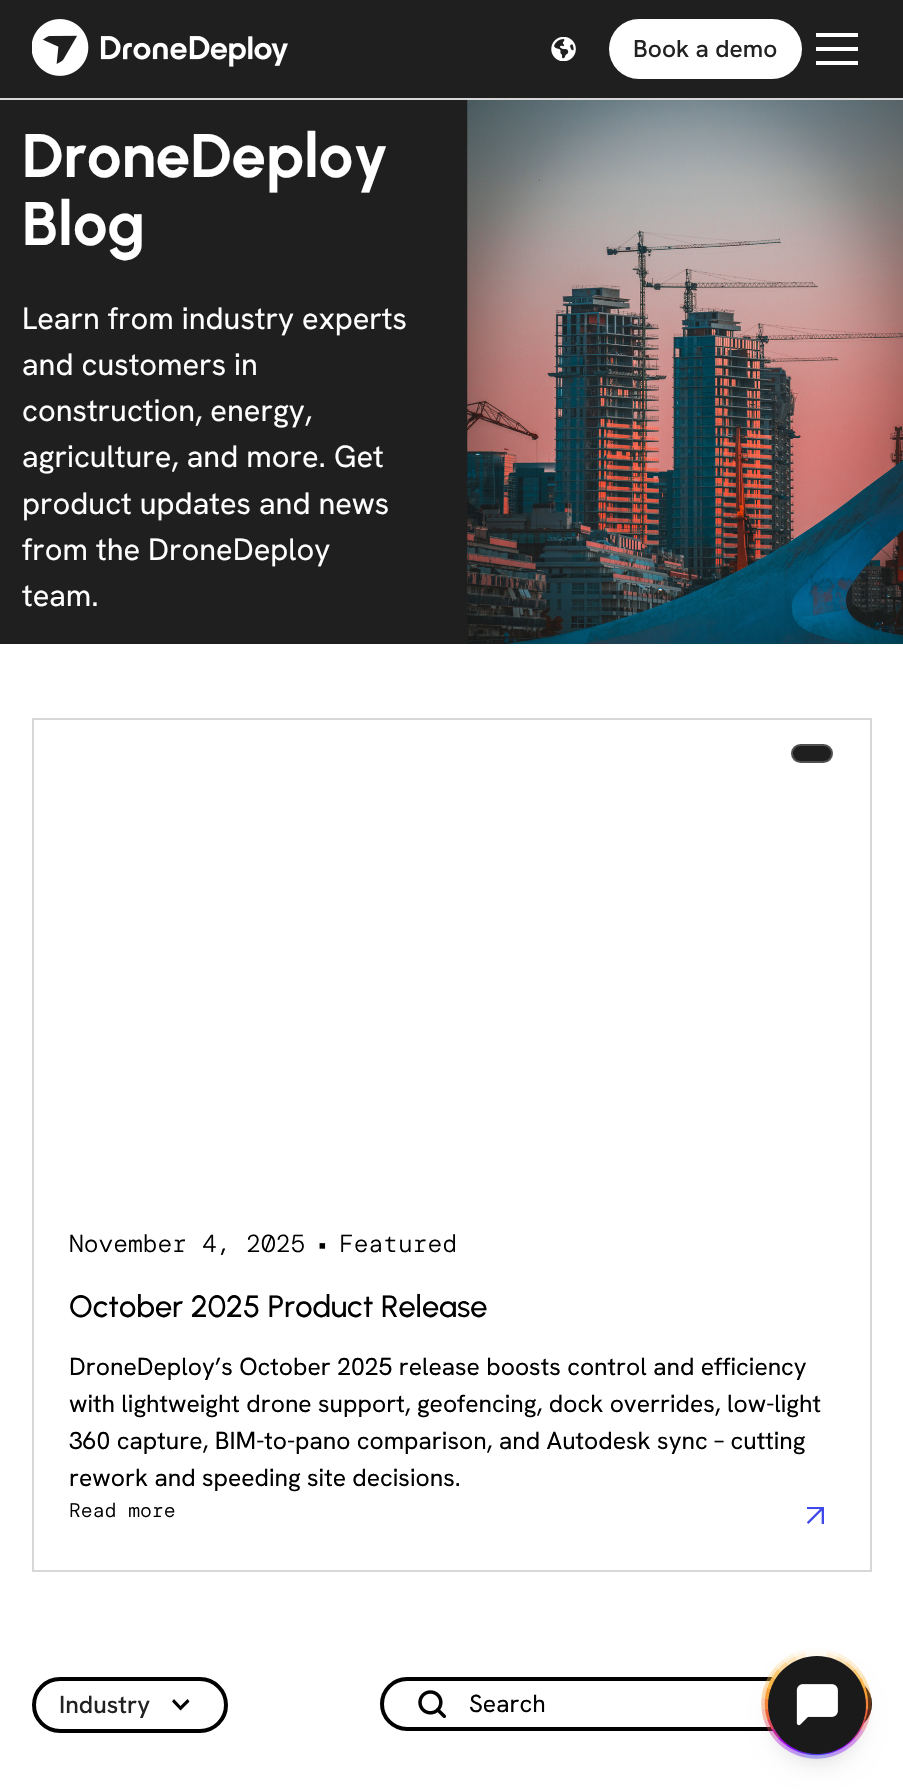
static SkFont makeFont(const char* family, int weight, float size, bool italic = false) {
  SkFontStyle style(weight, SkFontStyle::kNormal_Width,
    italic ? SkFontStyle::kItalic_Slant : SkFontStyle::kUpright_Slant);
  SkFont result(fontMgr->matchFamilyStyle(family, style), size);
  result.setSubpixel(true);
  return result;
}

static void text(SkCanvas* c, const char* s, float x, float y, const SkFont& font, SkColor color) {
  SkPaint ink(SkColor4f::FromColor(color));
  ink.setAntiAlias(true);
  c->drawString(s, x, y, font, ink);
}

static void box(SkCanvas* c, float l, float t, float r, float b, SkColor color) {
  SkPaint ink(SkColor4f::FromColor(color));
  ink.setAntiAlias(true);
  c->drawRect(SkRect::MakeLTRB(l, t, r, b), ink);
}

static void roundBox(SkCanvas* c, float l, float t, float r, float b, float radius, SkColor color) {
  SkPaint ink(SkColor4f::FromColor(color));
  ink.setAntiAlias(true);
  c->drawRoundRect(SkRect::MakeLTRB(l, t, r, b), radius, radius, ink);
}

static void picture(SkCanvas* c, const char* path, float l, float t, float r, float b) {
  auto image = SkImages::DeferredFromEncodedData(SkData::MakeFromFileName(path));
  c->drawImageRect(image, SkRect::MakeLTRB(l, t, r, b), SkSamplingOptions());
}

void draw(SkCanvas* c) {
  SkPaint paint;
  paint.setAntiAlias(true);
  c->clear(0xffffffff);
  box(c, 0, 0, 903, 98, 0xff1f1f1f);
  box(c, 0, 98, 903, 100, 0xffd7d7d7);
  picture(c, "img_01.png", 32, 19, 288, 76);
  picture(c, "img_02.png", 551, 37, 576, 61);
  roundBox(c, 609, 19, 802, 79, 30, 0xffffffff);
  SkFont face1 = makeFont("Hanken Grotesk", 500, 24.5f);
  text(c, "Book a demo", 633, 57, face1, 0xff222222);
  box(c, 816, 33, 858, 37, 0xffffffff);
  box(c, 816, 47, 858, 51, 0xffffffff);
  box(c, 816, 61, 858, 65, 0xffffffff);
  box(c, 0, 100, 468, 644, 0xff1f1f1f);
  SkFont face2 = makeFont("Urbanist", 700, 61.5f);
  text(c, "DroneDeploy", 22, 177, face2, 0xffffffff);
  text(c, "Blog", 22, 245, face2, 0xffffffff);
  SkFont face3 = makeFont("Hanken Grotesk", 400, 30.75f);
  text(c, "Learn from industry experts", 22, 329, face3, 0xffffffff);
  text(c, "and customers in", 22, 375, face3, 0xffffffff);
  text(c, "construction, energy,", 22, 421, face3, 0xffffffff);
  text(c, "agriculture, and more. Get", 22, 467, face3, 0xffffffff);
  text(c, "product updates and news", 22, 514, face3, 0xffffffff);
  text(c, "from the DroneDeploy", 22, 560, face3, 0xffffffff);
  text(c, "team.", 22, 606, face3, 0xffffffff);
  picture(c, "img_03.png", 467, 100, 903, 644);
  paint.setStyle(SkPaint::kStroke_Style);
  paint.setStrokeWidth(2);
  paint.setColor(0xffd7d7d7);
  c->drawRect(SkRect::MakeLTRB(33, 719, 871, 1571), paint);
  paint.setStyle(SkPaint::kFill_Style);
  paint.setColor(0xff1f1f1f);
  c->drawRoundRect(SkRect::MakeLTRB(792, 745, 832, 762), 8.5f, 8.5f, paint);
  paint.setStyle(SkPaint::kStroke_Style);
  paint.setColor(0xff505050);
  c->drawRoundRect(SkRect::MakeLTRB(792, 745, 832, 762), 8.5f, 8.5f, paint);
  SkFont face4 = makeFont("DM Mono", 300, 24.6f);
  text(c, "November 4, 2025", 69, 1252, face4, 0xff000000);
  SkFont face5 = makeFont("Hanken Grotesk", 400, 24.6f);
  text(c, "•", 318, 1252, face5, 0xff000000);
  text(c, "Featured", 339, 1252, face4, 0xff000000);
  SkFont face6 = makeFont("Urbanist", 500, 30.75f);
  text(c, "October 2025 Product Release", 69, 1317, face6, 0xff000000);
  text(c, "DroneDeploy’s October 2025 release boosts control and efficiency", 69, 1375, face5, 0xff000000);
  text(c, "with lightweight drone support, geofencing, dock overrides, low-light", 69, 1412, face5, 0xff000000);
  text(c, "360 capture, BIM-to-pano comparison, and Autodesk sync – cutting", 69, 1449, face5, 0xff000000);
  text(c, "rework and speeding site decisions.", 69, 1486, face5, 0xff000000);
  SkFont face7 = makeFont("DM Mono", 300, 19.75f);
  text(c, "Read more", 69, 1517, face7, 0xff000000);
  picture(c, "img_04.png", 807, 1507, 824, 1524);
  paint.setStrokeWidth(4);
  paint.setColor(0xff000000);
  c->drawRoundRect(SkRect::MakeLTRB(34, 1679, 226, 1731), 26, 26, paint);
  SkFont face8 = makeFont("Hanken Grotesk", 500, 24.6f);
  text(c, "Industry", 59, 1713, face8, 0xff222222);
  paint.setStyle(SkPaint::kFill_Style);
  c->drawPath(SkPathBuilder().moveTo(187.5f, 1699).lineTo(180.5f, 1706).lineTo(174, 1699).lineTo(172, 1701.5f).lineTo(180.5f, 1710.5f).lineTo(189.5f, 1701.5f).close().detach(), paint);
  picture(c, "img_05.png", 418, 1690, 446, 1718);
  paint.setStyle(SkPaint::kStroke_Style);
  c->drawRoundRect(SkRect::MakeLTRB(382, 1679, 870, 1729), 25, 25, paint);
  text(c, "Search", 469, 1712, face5, 0xff000000);
  paint.setStyle(SkPaint::kFill_Style);
  paint.setColor(0x0d000000);
  paint.setMaskFilter(SkMaskFilter::MakeBlur(kNormal_SkBlurStyle, 4.5f));
  c->drawRoundRect(SkRect::MakeLTRB(772, 1664, 863, 1757), 45.5f, 45.5f, paint);
  paint.setMaskFilter(nullptr);
  paint.setColor(0x1a000000);
  paint.setMaskFilter(SkMaskFilter::MakeBlur(kNormal_SkBlurStyle, 11.5f));
  c->drawRoundRect(SkRect::MakeLTRB(774, 1675, 861, 1764), 43.5f, 43.5f, paint);
  paint.setMaskFilter(nullptr);
  picture(c, "img_06.png", 761, 1649, 872, 1759);
  picture(c, "img_07.png", 764, 1652, 868, 1756);
  paint.setColor(0xff1a1a1a);
  c->drawCircle(817, 1705, 49, paint);
  picture(c, "img_08.png", 796, 1684, 838, 1726);
}
